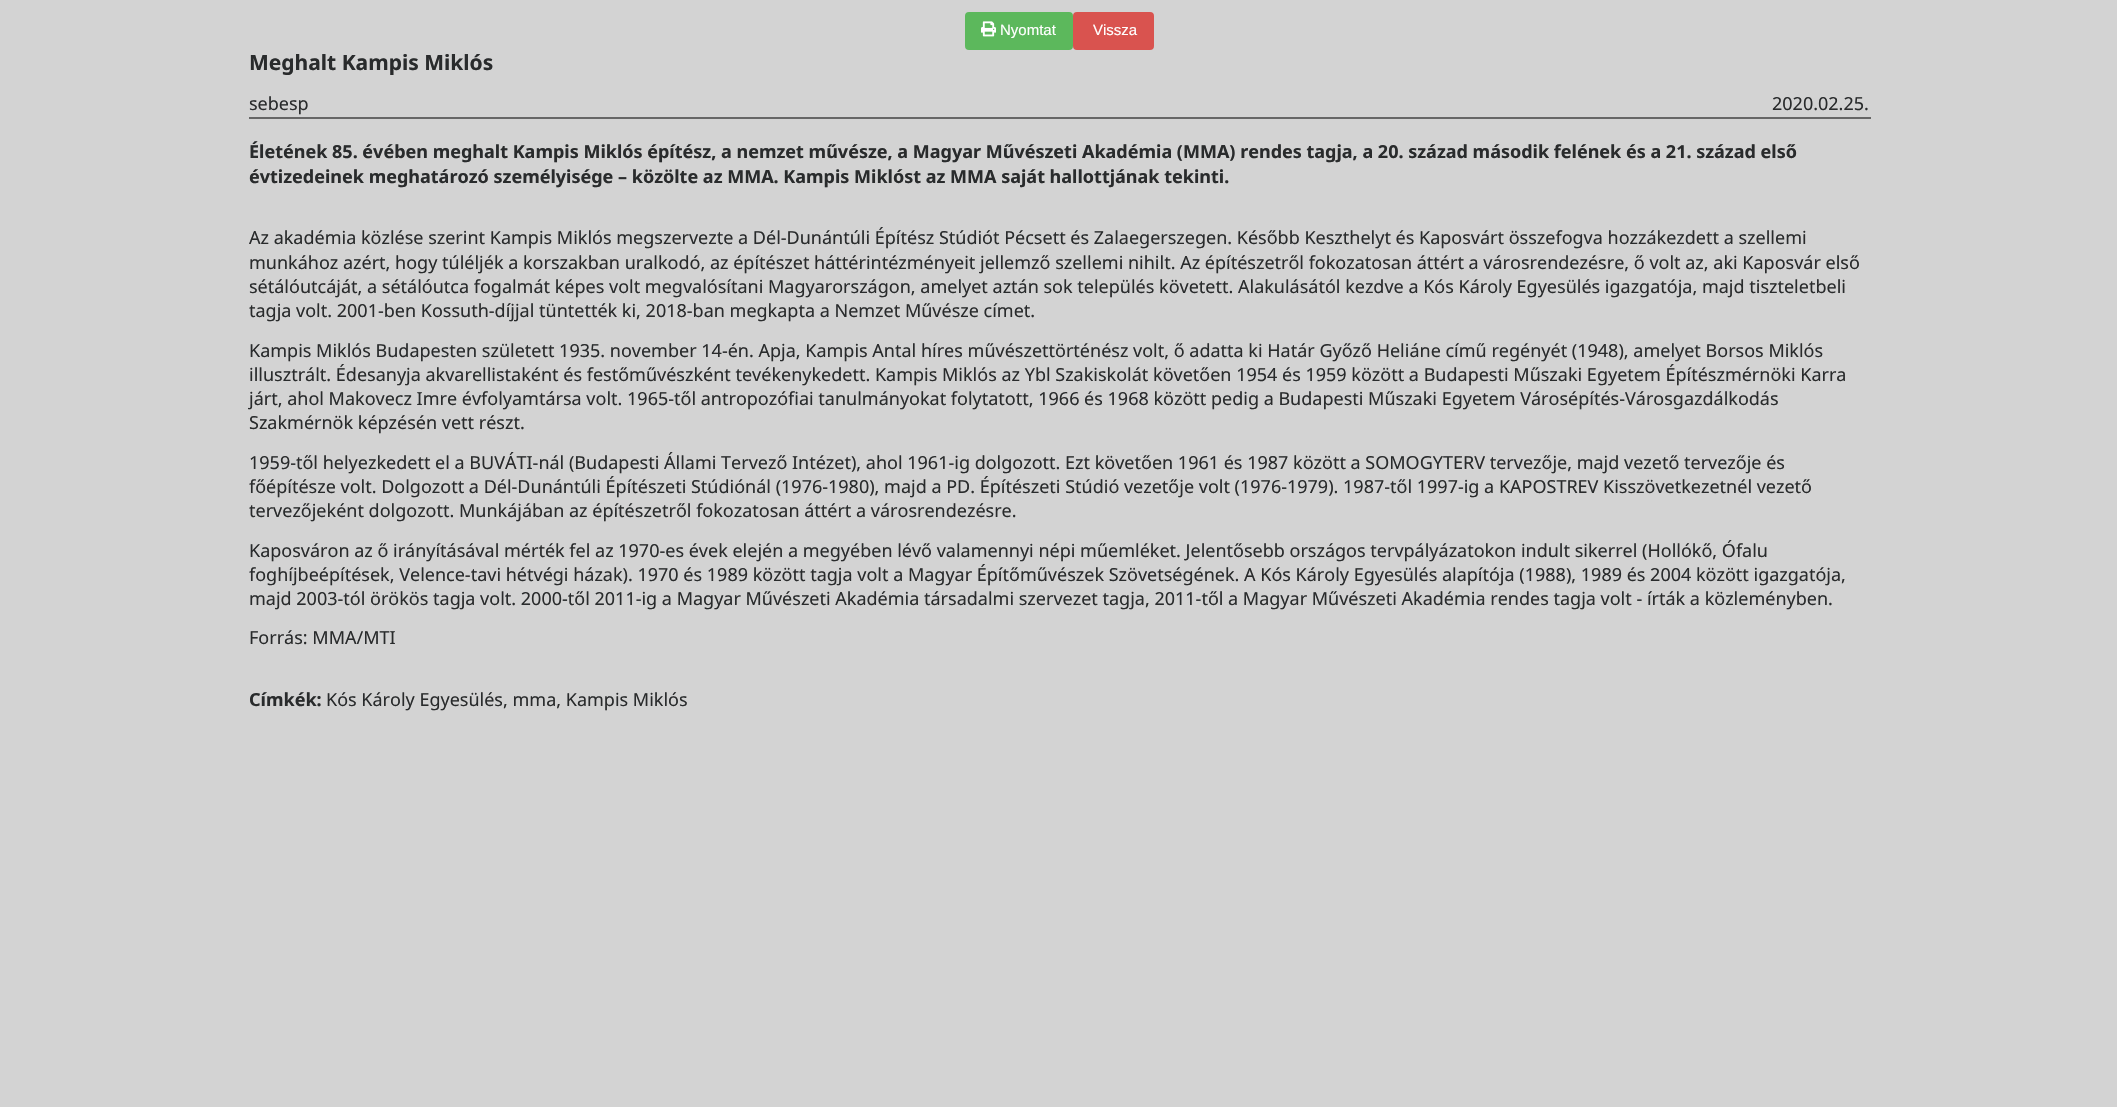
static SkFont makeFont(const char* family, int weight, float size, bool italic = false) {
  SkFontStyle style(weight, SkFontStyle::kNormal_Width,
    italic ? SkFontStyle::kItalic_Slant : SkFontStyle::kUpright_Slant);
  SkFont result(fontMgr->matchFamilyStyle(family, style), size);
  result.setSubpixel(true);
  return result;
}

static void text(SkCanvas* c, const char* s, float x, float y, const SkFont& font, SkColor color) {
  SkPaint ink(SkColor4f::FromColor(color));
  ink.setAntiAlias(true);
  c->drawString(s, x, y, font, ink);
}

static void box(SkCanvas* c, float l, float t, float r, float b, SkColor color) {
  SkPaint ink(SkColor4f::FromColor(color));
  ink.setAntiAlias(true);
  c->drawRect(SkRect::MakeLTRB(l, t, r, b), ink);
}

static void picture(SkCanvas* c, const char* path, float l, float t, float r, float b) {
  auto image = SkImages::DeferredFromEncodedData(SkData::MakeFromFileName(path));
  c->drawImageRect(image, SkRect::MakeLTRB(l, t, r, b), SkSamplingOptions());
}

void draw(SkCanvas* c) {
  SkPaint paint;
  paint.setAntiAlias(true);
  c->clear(0xffd3d3d3);
  paint.setColor(0xff5cb85c);
  c->drawRoundRect(SkRect::MakeLTRB(966, 13, 1072, 49), 3, 3, paint);
  paint.setStyle(SkPaint::kStroke_Style);
  paint.setStrokeWidth(2);
  c->drawRoundRect(SkRect::MakeLTRB(966, 13, 1072, 49), 3, 3, paint);
  picture(c, "img_01.png", 981, 21, 996, 37);
  SkFont face1 = makeFont("Liberation Sans", 400, 15);
  text(c, "Nyomtat", 1000, 35, face1, 0xffffffff);
  paint.setStyle(SkPaint::kFill_Style);
  paint.setColor(0xffd9534f);
  c->drawRoundRect(SkRect::MakeLTRB(1074, 13, 1153, 49), 3, 3, paint);
  paint.setStyle(SkPaint::kStroke_Style);
  c->drawRoundRect(SkRect::MakeLTRB(1074, 13, 1153, 49), 3, 3, paint);
  text(c, "Vissza", 1093, 35, face1, 0xffffffff);
  SkFont face2 = makeFont("Noto Sans", 700, 21);
  text(c, "Meghalt Kampis Miklós", 249, 70, face2, 0xff292b2c);
  SkFont face3 = makeFont("Noto Sans", 400, 18);
  text(c, "sebesp", 249, 110, face3, 0xff292b2c);
  box(c, 249, 117, 1871, 119, 0xff666666);
  text(c, "2020.02.25.", 1772, 110, face3, 0xff292b2c);
  SkFont face4 = makeFont("Noto Sans", 700, 18);
  text(c, "Életének 85. évében meghalt Kampis Miklós építész, a nemzet művésze, a Magyar Művészeti Akadémia (MMA) rendes tagja, a 20. század második felének és a 21. század első", 249, 158, face4, 0xff292b2c);
  text(c, "évtizedeinek meghatározó személyisége – közölte az MMA. Kampis Miklóst az MMA saját hallottjának tekinti.", 249, 183, face4, 0xff292b2c);
  text(c, "Az akadémia közlése szerint Kampis Miklós megszervezte a Dél-Dunántúli Építész Stúdiót Pécsett és Zalaegerszegen. Később Keszthelyt és Kaposvárt összefogva hozzákezdett a szellemi", 249, 244, face3, 0xff292b2c);
  text(c, "munkához azért, hogy túléljék a korszakban uralkodó, az építészet háttérintézményeit jellemző szellemi nihilt. Az építészetről fokozatosan áttért a városrendezésre, ő volt az, aki Kaposvár első", 249, 269, face3, 0xff292b2c);
  text(c, "sétálóutcáját, a sétálóutca fogalmát képes volt megvalósítani Magyarországon, amelyet aztán sok település követett. Alakulásától kezdve a Kós Károly Egyesülés igazgatója, majd tiszteletbeli", 249, 293, face3, 0xff292b2c);
  text(c, "tagja volt. 2001-ben Kossuth-díjjal tüntették ki, 2018-ban megkapta a Nemzet Művésze címet.", 249, 317, face3, 0xff292b2c);
  text(c, "Kampis Miklós Budapesten született 1935. november 14-én. Apja, Kampis Antal híres művészettörténész volt, ő adatta ki Határ Győző Heliáne című regényét (1948), amelyet Borsos Miklós", 249, 357, face3, 0xff292b2c);
  text(c, "illusztrált. Édesanyja akvarellistaként és festőművészként tevékenykedett. Kampis Miklós az Ybl Szakiskolát követően 1954 és 1959 között a Budapesti Műszaki Egyetem Építészmérnöki Karra", 249, 381, face3, 0xff292b2c);
  text(c, "járt, ahol Makovecz Imre évfolyamtársa volt. 1965-től antropozófiai tanulmányokat folytatott, 1966 és 1968 között pedig a Budapesti Műszaki Egyetem Városépítés-Városgazdálkodás", 249, 405, face3, 0xff292b2c);
  text(c, "Szakmérnök képzésén vett részt.", 249, 429, face3, 0xff292b2c);
  text(c, "1959-től helyezkedett el a BUVÁTI-nál (Budapesti Állami Tervező Intézet), ahol 1961-ig dolgozott. Ezt követően 1961 és 1987 között a SOMOGYTERV tervezője, majd vezető tervezője és", 249, 469, face3, 0xff292b2c);
  text(c, "főépítésze volt. Dolgozott a Dél-Dunántúli Építészeti Stúdiónál (1976-1980), majd a PD. Építészeti Stúdió vezetője volt (1976-1979). 1987-től 1997-ig a KAPOSTREV Kisszövetkezetnél vezető", 249, 493, face3, 0xff292b2c);
  text(c, "tervezőjeként dolgozott. Munkájában az építészetről fokozatosan áttért a városrendezésre.", 249, 517, face3, 0xff292b2c);
  text(c, "Kaposváron az ő irányításával mérték fel az 1970-es évek elején a megyében lévő valamennyi népi műemléket. Jelentősebb országos tervpályázatokon indult sikerrel (Hollókő, Ófalu", 249, 557, face3, 0xff292b2c);
  text(c, "foghíjbeépítések, Velence-tavi hétvégi házak). 1970 és 1989 között tagja volt a Magyar Építőművészek Szövetségének. A Kós Károly Egyesülés alapítója (1988), 1989 és 2004 között igazgatója,", 249, 581, face3, 0xff292b2c);
  text(c, "majd 2003-tól örökös tagja volt. 2000-től 2011-ig a Magyar Művészeti Akadémia társadalmi szervezet tagja, 2011-től a Magyar Művészeti Akadémia rendes tagja volt - írták a közleményben.", 249, 605, face3, 0xff292b2c);
  text(c, "Forrás: MMA/MTI", 249, 644, face3, 0xff292b2c);
  text(c, "Címkék:", 249, 706, face4, 0xff292b2c);
  text(c, "Kós Károly Egyesülés, mma, Kampis Miklós", 326, 706, face3, 0xff292b2c);
}
